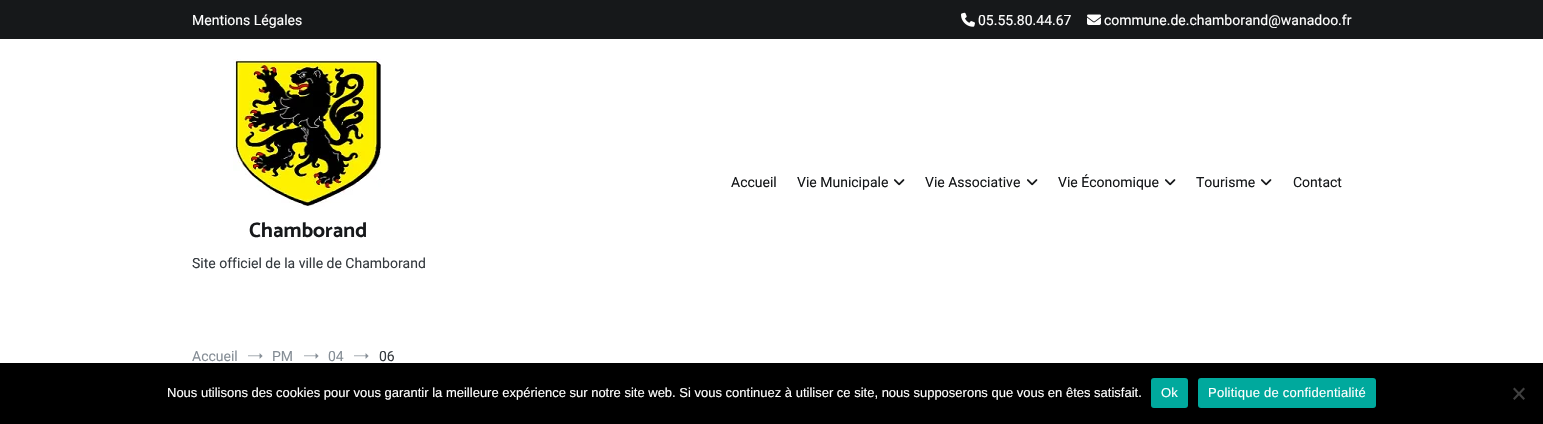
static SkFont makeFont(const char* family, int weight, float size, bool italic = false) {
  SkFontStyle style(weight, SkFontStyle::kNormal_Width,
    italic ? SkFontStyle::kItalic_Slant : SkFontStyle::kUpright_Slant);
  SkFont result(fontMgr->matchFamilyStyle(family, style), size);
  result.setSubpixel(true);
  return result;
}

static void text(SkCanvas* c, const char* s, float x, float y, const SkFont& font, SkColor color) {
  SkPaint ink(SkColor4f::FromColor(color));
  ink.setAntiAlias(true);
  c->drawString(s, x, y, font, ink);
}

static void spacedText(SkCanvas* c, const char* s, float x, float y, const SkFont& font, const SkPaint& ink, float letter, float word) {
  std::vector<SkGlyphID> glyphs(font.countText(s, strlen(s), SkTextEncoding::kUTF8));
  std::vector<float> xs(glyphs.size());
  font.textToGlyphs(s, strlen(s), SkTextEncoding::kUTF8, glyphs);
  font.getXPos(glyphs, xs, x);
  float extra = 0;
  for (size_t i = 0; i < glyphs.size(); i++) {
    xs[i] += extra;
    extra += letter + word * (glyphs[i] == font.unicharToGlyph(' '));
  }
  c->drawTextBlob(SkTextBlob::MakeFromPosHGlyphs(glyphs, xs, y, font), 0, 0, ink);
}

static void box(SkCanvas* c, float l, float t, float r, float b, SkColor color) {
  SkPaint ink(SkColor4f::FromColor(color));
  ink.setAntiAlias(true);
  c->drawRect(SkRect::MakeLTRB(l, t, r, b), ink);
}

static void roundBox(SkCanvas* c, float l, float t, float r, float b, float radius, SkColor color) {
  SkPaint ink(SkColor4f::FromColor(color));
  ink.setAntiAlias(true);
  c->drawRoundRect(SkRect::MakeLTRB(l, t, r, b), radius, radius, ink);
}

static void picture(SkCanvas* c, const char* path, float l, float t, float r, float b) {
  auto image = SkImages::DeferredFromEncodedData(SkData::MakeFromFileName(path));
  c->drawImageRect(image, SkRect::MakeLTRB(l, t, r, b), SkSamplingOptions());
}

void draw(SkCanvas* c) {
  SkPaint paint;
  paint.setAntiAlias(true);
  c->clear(0xffffffff);
  box(c, 0, 0, 1543, 39, 0xff16181a);
  SkFont face1 = makeFont("Roboto", 400, 14);
  text(c, "Mentions Légales", 192, 25, face1, 0xffffffff);
  picture(c, "img_01.png", 961, 12, 975, 27);
  text(c, "05.55.80.44.67", 978, 25, face1, 0xffffffff);
  picture(c, "img_02.png", 1087, 14, 1101, 25);
  text(c, "commune.de.chamborand@wanadoo.fr", 1104, 25, face1, 0xffffffff);
  text(c, "Accueil", 731, 187, face1, 0xff16181a);
  text(c, "Vie Municipale", 797, 187, face1, 0xff16181a);
  picture(c, "img_03.png", 894, 179, 905, 186);
  text(c, "Vie Associative", 925, 187, face1, 0xff16181a);
  picture(c, "img_03.png", 1027, 179, 1038, 186);
  text(c, "Vie Économique", 1058, 187, face1, 0xff16181a);
  picture(c, "img_03.png", 1165, 179, 1176, 186);
  text(c, "Tourisme", 1196, 187, face1, 0xff16181a);
  picture(c, "img_03.png", 1261, 179, 1272, 186);
  text(c, "Contact", 1293, 187, face1, 0xff16181a);
  picture(c, "img_04.png", 233, 59, 381, 207);
  SkFont face2 = makeFont("Catamaran", 700, 21);
  text(c, "Chamborand", 249, 237, face2, 0xff16181a);
  text(c, "Site officiel de la ville de Chamborand", 192, 268, face1, 0xff363b40);
  text(c, "Accueil", 192, 361, face1, 0xff868e96);
  picture(c, "img_05.png", 248, 353, 263, 359);
  text(c, "PM", 272, 361, face1, 0xff868e96);
  picture(c, "img_05.png", 304, 353, 319, 359);
  text(c, "04", 328, 361, face1, 0xff868e96);
  picture(c, "img_05.png", 354, 353, 369, 359);
  text(c, "06", 379, 361, face1, 0xff363b40);
  box(c, 0, 363, 1543, 424, 0xff000000);
  SkFont face3 = makeFont("Liberation Sans", 400, 13);
  text(c, "Nous utilisons des cookies pour vous garantir la meilleure expérience sur notre site web. Si vous continuez à utiliser ce site, nous supposerons que vous en êtes satisfait.", 167, 397, face3, 0xffffffff);
  roundBox(c, 1151, 378, 1188, 408, 3, 0xff00a99d);
  paint.setColor(0xffffffff);
  spacedText(c, "Ok", 1161, 397, face3, paint, 0.25f, 0);
  roundBox(c, 1198, 378, 1376, 408, 3, 0xff00a99d);
  spacedText(c, "Politique de confidentialité", 1208, 397, face3, paint, 0.25f, 0);
  paint.setColor(0xff404040);
  c->drawPath(SkPathBuilder().moveTo(1523.5f, 387.5f).lineTo(1525, 389).lineTo(1514.5f, 400).lineTo(1513, 398.5f).close().detach(), paint);
  c->drawPath(SkPathBuilder().moveTo(1513, 389).lineTo(1514.5f, 387.5f).lineTo(1525, 398.5f).lineTo(1523.5f, 400).close().detach(), paint);
}
